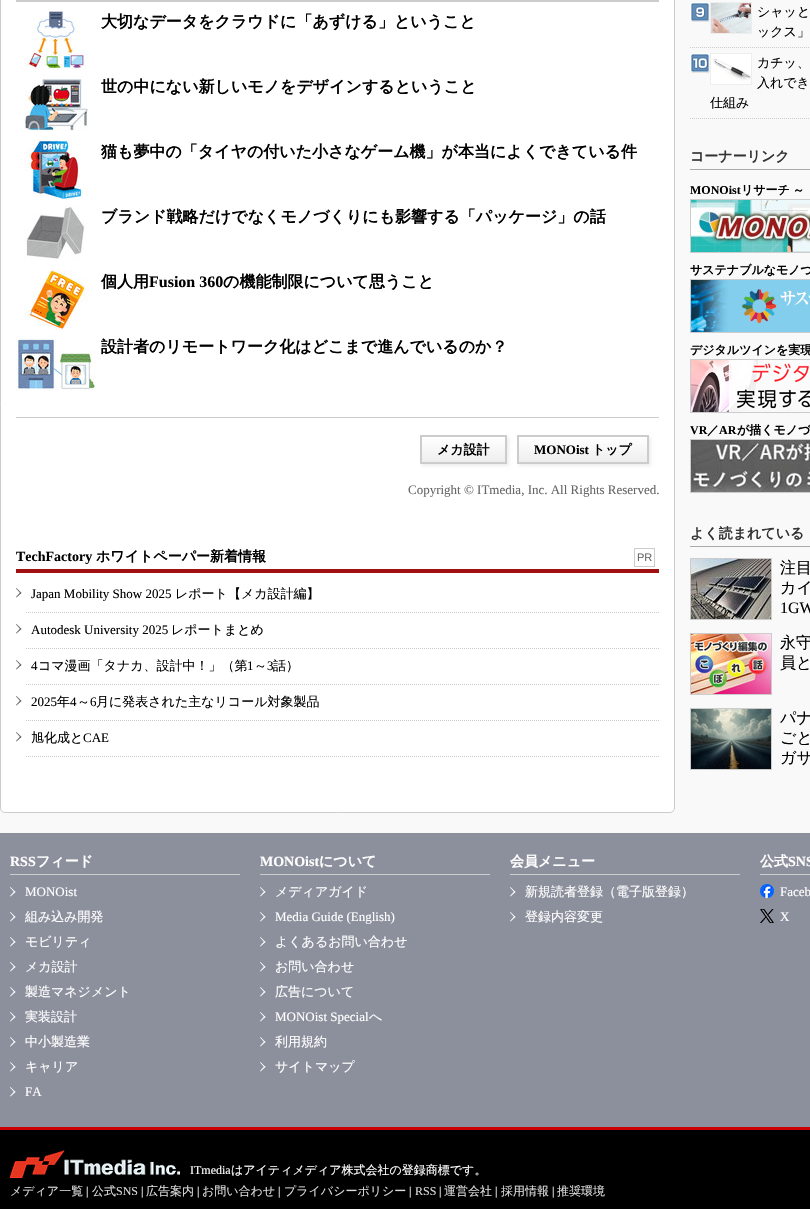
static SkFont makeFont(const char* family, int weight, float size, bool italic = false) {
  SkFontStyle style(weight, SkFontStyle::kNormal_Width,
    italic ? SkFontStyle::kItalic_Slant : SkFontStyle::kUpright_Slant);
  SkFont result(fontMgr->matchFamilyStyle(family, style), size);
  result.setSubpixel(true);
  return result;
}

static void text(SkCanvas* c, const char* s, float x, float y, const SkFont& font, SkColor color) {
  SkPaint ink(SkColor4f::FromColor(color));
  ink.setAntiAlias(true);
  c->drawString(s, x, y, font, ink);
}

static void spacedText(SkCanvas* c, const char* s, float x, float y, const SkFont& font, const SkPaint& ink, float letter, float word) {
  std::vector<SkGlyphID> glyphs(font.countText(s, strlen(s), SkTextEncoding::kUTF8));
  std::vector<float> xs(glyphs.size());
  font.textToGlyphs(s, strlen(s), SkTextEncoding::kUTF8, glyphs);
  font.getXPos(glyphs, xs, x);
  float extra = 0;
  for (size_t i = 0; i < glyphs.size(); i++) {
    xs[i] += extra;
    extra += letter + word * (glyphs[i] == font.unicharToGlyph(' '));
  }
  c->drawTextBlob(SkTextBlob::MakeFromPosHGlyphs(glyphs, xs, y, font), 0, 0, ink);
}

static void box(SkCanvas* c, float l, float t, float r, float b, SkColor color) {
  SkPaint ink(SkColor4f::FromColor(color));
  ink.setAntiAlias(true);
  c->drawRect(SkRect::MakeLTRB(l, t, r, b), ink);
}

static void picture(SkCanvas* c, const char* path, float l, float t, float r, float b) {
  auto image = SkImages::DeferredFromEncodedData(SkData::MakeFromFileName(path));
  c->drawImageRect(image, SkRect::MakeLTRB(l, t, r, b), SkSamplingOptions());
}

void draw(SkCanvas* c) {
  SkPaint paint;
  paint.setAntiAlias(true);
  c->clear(0xfff9f9f9);
  paint.setColor(0xffffffff);
  c->drawRoundRect(SkRect::MakeLTRB(0.5f, -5.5f, 674.5f, 812.5f), 4.5f, 4.5f, paint);
  paint.setStyle(SkPaint::kStroke_Style);
  paint.setStrokeWidth(1);
  paint.setColor(0xffcccccc);
  c->drawRoundRect(SkRect::MakeLTRB(0.5f, -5.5f, 674.5f, 812.5f), 4.5f, 4.5f, paint);
  box(c, 16, 0, 659, 2, 0xffcccccc);
  box(c, 16, 417, 659, 418, 0xffcccccc);
  picture(c, "img_01.png", 24, 10, 88, 70);
  SkFont face1 = makeFont("WenQuanYi Zen Hei", 700, 16);
  text(c, "大切なデータをクラウドに「あずける」ということ", 101, 27, face1, 0xff000000);
  picture(c, "img_02.png", 24, 75, 88, 131);
  text(c, "世の中にない新しいモノをデザインするということ", 101, 92, face1, 0xff000000);
  picture(c, "img_03.png", 24, 140, 88, 200);
  text(c, "猫も夢中の「タイヤの付いた小さなゲーム機」が本当によくできている件", 101, 157, face1, 0xff000000);
  picture(c, "img_04.png", 24, 205, 87, 261);
  text(c, "ブランド戦略だけでなくモノづくりにも影響する「パッケージ」の話", 101, 222, face1, 0xff000000);
  picture(c, "img_05.png", 24, 270, 88, 330);
  text(c, "個人用", 101, 287, face1, 0xff000000);
  SkFont face2 = makeFont("Liberation Serif", 700, 16);
  text(c, "Fusion 360", 149, 287, face2, 0xff000000);
  text(c, "の機能制限について思うこと", 223, 287, face1, 0xff000000);
  picture(c, "img_06.png", 16, 335, 96, 391);
  text(c, "設計者のリモートワーク化はどこまで進んでいるのか？", 101, 352, face1, 0xff000000);
  paint.setStyle(SkPaint::kFill_Style);
  paint.setColor(0xffeeeeee);
  paint.setMaskFilter(SkMaskFilter::MakeBlur(kNormal_SkBlurStyle, 1.5f));
  c->drawRect(SkRect::MakeLTRB(422, 437, 509, 466), paint);
  paint.setMaskFilter(nullptr);
  {
    const SkColor colors[] = {0xffffffff, 0xffeeeeee};
    const float stops[] = {0, 1};
    const SkPoint ends[] = {{422, 437}, {422, 462}};
    paint.setShader(SkGradientShader::MakeLinear(ends, colors, stops, 2, SkTileMode::kClamp));
    paint.setAlpha(255);
  }
  c->drawRect(SkRect::MakeLTRB(422, 437, 505, 462), paint);
  paint.setStyle(SkPaint::kStroke_Style);
  paint.setStrokeWidth(2);
  paint.setShader(nullptr);
  paint.setColor(0xffcccccc);
  c->drawRect(SkRect::MakeLTRB(421, 436, 506, 463), paint);
  SkFont face3 = makeFont("WenQuanYi Zen Hei", 700, 13);
  text(c, "メカ設計", 437, 454, face3, 0xff000000);
  paint.setStyle(SkPaint::kFill_Style);
  paint.setColor(0xffeeeeee);
  paint.setMaskFilter(SkMaskFilter::MakeBlur(kNormal_SkBlurStyle, 1.5f));
  c->drawRect(SkRect::MakeLTRB(519, 437, 651, 466), paint);
  paint.setMaskFilter(nullptr);
  {
    const SkColor colors[] = {0xffffffff, 0xffeeeeee};
    const float stops[] = {0, 1};
    const SkPoint ends[] = {{519, 437}, {519, 462}};
    paint.setShader(SkGradientShader::MakeLinear(ends, colors, stops, 2, SkTileMode::kClamp));
    paint.setAlpha(255);
  }
  c->drawRect(SkRect::MakeLTRB(519, 437, 647, 462), paint);
  paint.setStyle(SkPaint::kStroke_Style);
  paint.setShader(nullptr);
  paint.setColor(0xffcccccc);
  c->drawRect(SkRect::MakeLTRB(518, 436, 648, 463), paint);
  SkFont face4 = makeFont("Liberation Serif", 700, 13);
  text(c, "MONOist", 534, 454, face4, 0xff000000);
  text(c, "トップ", 592, 454, face3, 0xff000000);
  SkFont face5 = makeFont("Liberation Serif", 400, 13);
  text(c, "Copyright © ITmedia, Inc. All Rights Reserved.", 408, 494, face5, 0xff666666);
  box(c, 16, 569, 659, 573, 0xffa01013);
  SkFont face6 = makeFont("Liberation Serif", 700, 14);
  text(c, "TechFactory", 16, 561, face6, 0xff000000);
  SkFont face7 = makeFont("WenQuanYi Zen Hei", 700, 14);
  text(c, "ホワイトペーパー新着情報", 96, 561, face7, 0xff000000);
  paint.setStrokeWidth(1);
  c->drawRect(SkRect::MakeLTRB(634.5f, 548.5f, 654.5f, 566.5f), paint);
  SkFont face8 = makeFont("Liberation Sans", 400, 11);
  text(c, "PR", 637, 561, face8, 0xff666666);
  paint.setPathEffect(SkDashPathEffect::Make({{1, 1}}, 0));
  c->drawPath(SkPathBuilder().moveTo(26, 612.5f).lineTo(659, 612.5f).detach(), paint);
  paint.setPathEffect(nullptr);
  paint.setStyle(SkPaint::kFill_Style);
  paint.setColor(0xff666666);
  c->drawPath(SkPathBuilder().moveTo(16, 588.5f).lineTo(16.5f, 588).lineTo(21.5f, 593).lineTo(20.5f, 593.5f).close().detach(), paint);
  c->drawPath(SkPathBuilder().moveTo(16, 597).lineTo(20.5f, 592).lineTo(21.5f, 593).lineTo(16.5f, 597.5f).close().detach(), paint);
  text(c, "Japan Mobility Show 2025", 31, 598, face5, 0xff000000);
  SkFont face9 = makeFont("WenQuanYi Zen Hei", 500, 13);
  text(c, "レポート【メカ設計編】", 175, 598, face9, 0xff000000);
  paint.setStyle(SkPaint::kStroke_Style);
  paint.setColor(0xffcccccc);
  paint.setPathEffect(SkDashPathEffect::Make({{1, 1}}, 0));
  c->drawPath(SkPathBuilder().moveTo(26, 648.5f).lineTo(659, 648.5f).detach(), paint);
  paint.setPathEffect(nullptr);
  paint.setStyle(SkPaint::kFill_Style);
  paint.setColor(0xff666666);
  c->drawPath(SkPathBuilder().moveTo(16, 624.5f).lineTo(16.5f, 624).lineTo(21.5f, 629).lineTo(20.5f, 629.5f).close().detach(), paint);
  c->drawPath(SkPathBuilder().moveTo(16, 633).lineTo(20.5f, 628).lineTo(21.5f, 629).lineTo(16.5f, 633.5f).close().detach(), paint);
  text(c, "Autodesk University 2025", 31, 634, face5, 0xff000000);
  text(c, "レポートまとめ", 171, 634, face9, 0xff000000);
  paint.setStyle(SkPaint::kStroke_Style);
  paint.setColor(0xffcccccc);
  paint.setPathEffect(SkDashPathEffect::Make({{1, 1}}, 0));
  c->drawPath(SkPathBuilder().moveTo(26, 684.5f).lineTo(659, 684.5f).detach(), paint);
  paint.setPathEffect(nullptr);
  paint.setStyle(SkPaint::kFill_Style);
  paint.setColor(0xff666666);
  c->drawPath(SkPathBuilder().moveTo(16, 660.5f).lineTo(16.5f, 660).lineTo(21.5f, 665).lineTo(20.5f, 665.5f).close().detach(), paint);
  c->drawPath(SkPathBuilder().moveTo(16, 669).lineTo(20.5f, 664).lineTo(21.5f, 665).lineTo(16.5f, 669.5f).close().detach(), paint);
  text(c, "4", 31, 670, face5, 0xff000000);
  text(c, "コマ漫画「タナカ、設計中！」（第", 38, 670, face9, 0xff000000);
  text(c, "1", 247, 670, face5, 0xff000000);
  text(c, "～", 254, 670, face9, 0xff000000);
  text(c, "3", 267, 670, face5, 0xff000000);
  text(c, "話）", 273, 670, face9, 0xff000000);
  paint.setStyle(SkPaint::kStroke_Style);
  paint.setColor(0xffcccccc);
  paint.setPathEffect(SkDashPathEffect::Make({{1, 1}}, 0));
  c->drawPath(SkPathBuilder().moveTo(26, 720.5f).lineTo(659, 720.5f).detach(), paint);
  paint.setPathEffect(nullptr);
  paint.setStyle(SkPaint::kFill_Style);
  paint.setColor(0xff666666);
  c->drawPath(SkPathBuilder().moveTo(16, 696.5f).lineTo(16.5f, 696).lineTo(21.5f, 701).lineTo(20.5f, 701.5f).close().detach(), paint);
  c->drawPath(SkPathBuilder().moveTo(16, 705).lineTo(20.5f, 700).lineTo(21.5f, 701).lineTo(16.5f, 705.5f).close().detach(), paint);
  text(c, "2025", 31, 706, face5, 0xff000000);
  text(c, "年", 57, 706, face9, 0xff000000);
  text(c, "4", 70, 706, face5, 0xff000000);
  text(c, "～", 77, 706, face9, 0xff000000);
  text(c, "6", 90, 706, face5, 0xff000000);
  text(c, "月に発表された主なリコール対象製品", 96, 706, face9, 0xff000000);
  paint.setStyle(SkPaint::kStroke_Style);
  paint.setColor(0xffcccccc);
  paint.setPathEffect(SkDashPathEffect::Make({{1, 1}}, 0));
  c->drawPath(SkPathBuilder().moveTo(26, 756.5f).lineTo(659, 756.5f).detach(), paint);
  paint.setPathEffect(nullptr);
  paint.setStyle(SkPaint::kFill_Style);
  paint.setColor(0xff666666);
  c->drawPath(SkPathBuilder().moveTo(16, 732.5f).lineTo(16.5f, 732).lineTo(21.5f, 737).lineTo(20.5f, 737.5f).close().detach(), paint);
  c->drawPath(SkPathBuilder().moveTo(16, 741).lineTo(20.5f, 736).lineTo(21.5f, 737).lineTo(16.5f, 741.5f).close().detach(), paint);
  text(c, "旭化成と", 31, 742, face9, 0xff000000);
  text(c, "CAE", 83, 742, face5, 0xff000000);
  paint.setStyle(SkPaint::kStroke_Style);
  paint.setColor(0xffcccccc);
  paint.setPathEffect(SkDashPathEffect::Make({{1, 1}}, 0));
  c->drawPath(SkPathBuilder().moveTo(690, 47.5f).lineTo(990, 47.5f).detach(), paint);
  paint.setPathEffect(nullptr);
  picture(c, "img_07.png", 690, 2, 710, 22);
  picture(c, "img_08.png", 711, 3, 751, 33);
  paint.setColor(0xffeeeeee);
  c->drawRect(SkRect::MakeLTRB(710.5f, 2.5f, 751.5f, 33.5f), paint);
  text(c, "シャッと", 757, 16, face9, 0xff000000);
  text(c, "ックス」", 757, 36, face9, 0xff000000);
  paint.setColor(0xffcccccc);
  paint.setPathEffect(SkDashPathEffect::Make({{1, 1}}, 0));
  c->drawPath(SkPathBuilder().moveTo(690, 118.5f).lineTo(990, 118.5f).detach(), paint);
  paint.setPathEffect(nullptr);
  picture(c, "img_09.png", 690, 53, 710, 73);
  picture(c, "img_10.png", 711, 54, 751, 84);
  paint.setColor(0xffeeeeee);
  c->drawRect(SkRect::MakeLTRB(710.5f, 53.5f, 751.5f, 84.5f), paint);
  text(c, "カチッ、", 757, 67, face9, 0xff000000);
  text(c, "入れでき", 757, 87, face9, 0xff000000);
  text(c, "仕組み", 710, 107, face9, 0xff000000);
  box(c, 690, 169, 810, 170, 0xffaaaaaa);
  text(c, "コーナーリンク", 690, 161, face7, 0xff333333);
  SkFont face10 = makeFont("Liberation Serif", 700, 12);
  text(c, "MONOist", 690, 194, face10, 0xff000000);
  SkFont face11 = makeFont("WenQuanYi Zen Hei", 700, 12);
  paint.setStyle(SkPaint::kFill_Style);
  paint.setColor(0xff000000);
  spacedText(c, "リサーチ ～", 741, 194, face11, paint, 0, -1);
  paint.setStyle(SkPaint::kStroke_Style);
  paint.setColor(0xffcccccc);
  c->drawRect(SkRect::MakeLTRB(690.5f, 199.5f, 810.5f, 252.5f), paint);
  picture(c, "img_11.png", 691, 200, 810, 252);
  text(c, "サステナブルなモノづ", 690, 274, face11, 0xff000000);
  c->drawRect(SkRect::MakeLTRB(690.5f, 279.5f, 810.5f, 332.5f), paint);
  picture(c, "img_12.png", 691, 280, 810, 332);
  text(c, "デジタルツインを実現", 690, 354, face11, 0xff000000);
  c->drawRect(SkRect::MakeLTRB(690.5f, 359.5f, 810.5f, 412.5f), paint);
  picture(c, "img_13.png", 691, 360, 810, 412);
  text(c, "VR", 690, 434, face10, 0xff000000);
  text(c, "／", 707, 434, face11, 0xff000000);
  text(c, "AR", 719, 434, face10, 0xff000000);
  text(c, "が描くモノづ", 737, 434, face11, 0xff000000);
  c->drawRect(SkRect::MakeLTRB(690.5f, 439.5f, 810.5f, 492.5f), paint);
  picture(c, "img_14.png", 691, 440, 810, 492);
  box(c, 690, 546, 810, 547, 0xffaaaaaa);
  text(c, "よく読まれている", 690, 538, face7, 0xff333333);
  c->drawRect(SkRect::MakeLTRB(690.5f, 558.5f, 771.5f, 619.5f), paint);
  picture(c, "img_15.png", 691, 559, 771, 619);
  SkFont face12 = makeFont("WenQuanYi Zen Hei", 500, 16);
  text(c, "注目", 780, 573, face12, 0xff000000);
  text(c, "カイ", 780, 593, face12, 0xff000000);
  SkFont face13 = makeFont("Liberation Serif", 400, 16);
  text(c, "1GW", 780, 613, face13, 0xff000000);
  c->drawRect(SkRect::MakeLTRB(690.5f, 633.5f, 771.5f, 694.5f), paint);
  picture(c, "img_16.png", 691, 634, 771, 694);
  text(c, "永守", 780, 648, face12, 0xff000000);
  text(c, "員と", 780, 668, face12, 0xff000000);
  c->drawRect(SkRect::MakeLTRB(690.5f, 708.5f, 771.5f, 769.5f), paint);
  picture(c, "img_17.png", 691, 709, 771, 769);
  text(c, "パナ", 780, 723, face12, 0xff000000);
  text(c, "ごと", 780, 743, face12, 0xff000000);
  text(c, "ガサ", 780, 763, face12, 0xff000000);
  box(c, 0, 833, 810, 1127, 0xff8c909d);
  box(c, 10, 874, 240, 875, 0xffcccccc);
  text(c, "RSS", 10, 866, face6, 0xffffffff);
  text(c, "フィード", 36, 866, face7, 0xffffffff);
  paint.setStyle(SkPaint::kFill_Style);
  paint.setColor(0xffffffff);
  c->drawPath(SkPathBuilder().moveTo(10, 887.5f).lineTo(10.5f, 887).lineTo(15.5f, 892).lineTo(14.5f, 892.5f).close().detach(), paint);
  c->drawPath(SkPathBuilder().moveTo(10, 896).lineTo(14.5f, 891).lineTo(15.5f, 892).lineTo(10.5f, 896.5f).close().detach(), paint);
  text(c, "MONOist", 25, 896, face5, 0xffffffff);
  c->drawPath(SkPathBuilder().moveTo(10, 912.5f).lineTo(10.5f, 912).lineTo(15.5f, 917).lineTo(14.5f, 917.5f).close().detach(), paint);
  c->drawPath(SkPathBuilder().moveTo(10, 921).lineTo(14.5f, 916).lineTo(15.5f, 917).lineTo(10.5f, 921.5f).close().detach(), paint);
  text(c, "組み込み開発", 25, 921, face9, 0xffffffff);
  c->drawPath(SkPathBuilder().moveTo(10, 937.5f).lineTo(10.5f, 937).lineTo(15.5f, 942).lineTo(14.5f, 942.5f).close().detach(), paint);
  c->drawPath(SkPathBuilder().moveTo(10, 946).lineTo(14.5f, 941).lineTo(15.5f, 942).lineTo(10.5f, 946.5f).close().detach(), paint);
  text(c, "モビリティ", 25, 946, face9, 0xffffffff);
  c->drawPath(SkPathBuilder().moveTo(10, 962.5f).lineTo(10.5f, 962).lineTo(15.5f, 967).lineTo(14.5f, 967.5f).close().detach(), paint);
  c->drawPath(SkPathBuilder().moveTo(10, 971).lineTo(14.5f, 966).lineTo(15.5f, 967).lineTo(10.5f, 971.5f).close().detach(), paint);
  text(c, "メカ設計", 25, 971, face9, 0xffffffff);
  c->drawPath(SkPathBuilder().moveTo(10, 987.5f).lineTo(10.5f, 987).lineTo(15.5f, 992).lineTo(14.5f, 992.5f).close().detach(), paint);
  c->drawPath(SkPathBuilder().moveTo(10, 996).lineTo(14.5f, 991).lineTo(15.5f, 992).lineTo(10.5f, 996.5f).close().detach(), paint);
  text(c, "製造マネジメント", 25, 996, face9, 0xffffffff);
  c->drawPath(SkPathBuilder().moveTo(10, 1012.5f).lineTo(10.5f, 1012).lineTo(15.5f, 1017).lineTo(14.5f, 1017.5f).close().detach(), paint);
  c->drawPath(SkPathBuilder().moveTo(10, 1021).lineTo(14.5f, 1016).lineTo(15.5f, 1017).lineTo(10.5f, 1021.5f).close().detach(), paint);
  text(c, "実装設計", 25, 1021, face9, 0xffffffff);
  c->drawPath(SkPathBuilder().moveTo(10, 1037.5f).lineTo(10.5f, 1037).lineTo(15.5f, 1042).lineTo(14.5f, 1042.5f).close().detach(), paint);
  c->drawPath(SkPathBuilder().moveTo(10, 1046).lineTo(14.5f, 1041).lineTo(15.5f, 1042).lineTo(10.5f, 1046.5f).close().detach(), paint);
  text(c, "中小製造業", 25, 1046, face9, 0xffffffff);
  c->drawPath(SkPathBuilder().moveTo(10, 1062.5f).lineTo(10.5f, 1062).lineTo(15.5f, 1067).lineTo(14.5f, 1067.5f).close().detach(), paint);
  c->drawPath(SkPathBuilder().moveTo(10, 1071).lineTo(14.5f, 1066).lineTo(15.5f, 1067).lineTo(10.5f, 1071.5f).close().detach(), paint);
  text(c, "キャリア", 25, 1071, face9, 0xffffffff);
  c->drawPath(SkPathBuilder().moveTo(10, 1087.5f).lineTo(10.5f, 1087).lineTo(15.5f, 1092).lineTo(14.5f, 1092.5f).close().detach(), paint);
  c->drawPath(SkPathBuilder().moveTo(10, 1096).lineTo(14.5f, 1091).lineTo(15.5f, 1092).lineTo(10.5f, 1096.5f).close().detach(), paint);
  text(c, "FA", 25, 1096, face5, 0xffffffff);
  box(c, 260, 874, 490, 875, 0xffcccccc);
  text(c, "MONOist", 260, 866, face6, 0xffffffff);
  text(c, "について", 319, 866, face7, 0xffffffff);
  c->drawPath(SkPathBuilder().moveTo(260, 887.5f).lineTo(260.5f, 887).lineTo(265.5f, 892).lineTo(264.5f, 892.5f).close().detach(), paint);
  c->drawPath(SkPathBuilder().moveTo(260, 896).lineTo(264.5f, 891).lineTo(265.5f, 892).lineTo(260.5f, 896.5f).close().detach(), paint);
  text(c, "メディアガイド", 275, 896, face9, 0xffffffff);
  c->drawPath(SkPathBuilder().moveTo(260, 912.5f).lineTo(260.5f, 912).lineTo(265.5f, 917).lineTo(264.5f, 917.5f).close().detach(), paint);
  c->drawPath(SkPathBuilder().moveTo(260, 921).lineTo(264.5f, 916).lineTo(265.5f, 917).lineTo(260.5f, 921.5f).close().detach(), paint);
  text(c, "Media Guide (English)", 275, 921, face5, 0xffffffff);
  c->drawPath(SkPathBuilder().moveTo(260, 937.5f).lineTo(260.5f, 937).lineTo(265.5f, 942).lineTo(264.5f, 942.5f).close().detach(), paint);
  c->drawPath(SkPathBuilder().moveTo(260, 946).lineTo(264.5f, 941).lineTo(265.5f, 942).lineTo(260.5f, 946.5f).close().detach(), paint);
  text(c, "よくあるお問い合わせ", 275, 946, face9, 0xffffffff);
  c->drawPath(SkPathBuilder().moveTo(260, 962.5f).lineTo(260.5f, 962).lineTo(265.5f, 967).lineTo(264.5f, 967.5f).close().detach(), paint);
  c->drawPath(SkPathBuilder().moveTo(260, 971).lineTo(264.5f, 966).lineTo(265.5f, 967).lineTo(260.5f, 971.5f).close().detach(), paint);
  text(c, "お問い合わせ", 275, 971, face9, 0xffffffff);
  c->drawPath(SkPathBuilder().moveTo(260, 987.5f).lineTo(260.5f, 987).lineTo(265.5f, 992).lineTo(264.5f, 992.5f).close().detach(), paint);
  c->drawPath(SkPathBuilder().moveTo(260, 996).lineTo(264.5f, 991).lineTo(265.5f, 992).lineTo(260.5f, 996.5f).close().detach(), paint);
  text(c, "広告について", 275, 996, face9, 0xffffffff);
  c->drawPath(SkPathBuilder().moveTo(260, 1012.5f).lineTo(260.5f, 1012).lineTo(265.5f, 1017).lineTo(264.5f, 1017.5f).close().detach(), paint);
  c->drawPath(SkPathBuilder().moveTo(260, 1021).lineTo(264.5f, 1016).lineTo(265.5f, 1017).lineTo(260.5f, 1021.5f).close().detach(), paint);
  text(c, "MONOist Special", 275, 1021, face5, 0xffffffff);
  text(c, "へ", 369, 1021, face9, 0xffffffff);
  c->drawPath(SkPathBuilder().moveTo(260, 1037.5f).lineTo(260.5f, 1037).lineTo(265.5f, 1042).lineTo(264.5f, 1042.5f).close().detach(), paint);
  c->drawPath(SkPathBuilder().moveTo(260, 1046).lineTo(264.5f, 1041).lineTo(265.5f, 1042).lineTo(260.5f, 1046.5f).close().detach(), paint);
  text(c, "利用規約", 275, 1046, face9, 0xffffffff);
  c->drawPath(SkPathBuilder().moveTo(260, 1062.5f).lineTo(260.5f, 1062).lineTo(265.5f, 1067).lineTo(264.5f, 1067.5f).close().detach(), paint);
  c->drawPath(SkPathBuilder().moveTo(260, 1071).lineTo(264.5f, 1066).lineTo(265.5f, 1067).lineTo(260.5f, 1071.5f).close().detach(), paint);
  text(c, "サイトマップ", 275, 1071, face9, 0xffffffff);
  box(c, 510, 874, 740, 875, 0xffcccccc);
  text(c, "会員メニュー", 510, 866, face7, 0xffffffff);
  c->drawPath(SkPathBuilder().moveTo(510, 887.5f).lineTo(510.5f, 887).lineTo(515.5f, 892).lineTo(514.5f, 892.5f).close().detach(), paint);
  c->drawPath(SkPathBuilder().moveTo(510, 896).lineTo(514.5f, 891).lineTo(515.5f, 892).lineTo(510.5f, 896.5f).close().detach(), paint);
  text(c, "新規読者登録（電子版登録）", 525, 896, face9, 0xffffffff);
  c->drawPath(SkPathBuilder().moveTo(510, 912.5f).lineTo(510.5f, 912).lineTo(515.5f, 917).lineTo(514.5f, 917.5f).close().detach(), paint);
  c->drawPath(SkPathBuilder().moveTo(510, 921).lineTo(514.5f, 916).lineTo(515.5f, 917).lineTo(510.5f, 921.5f).close().detach(), paint);
  text(c, "登録内容変更", 525, 921, face9, 0xffffffff);
  box(c, 760, 874, 810, 875, 0xffcccccc);
  text(c, "公式", 760, 866, face7, 0xffffffff);
  text(c, "SNS", 788, 866, face6, 0xffffffff);
  picture(c, "img_18.png", 760, 884, 774, 898);
  text(c, "Faceb", 780, 896, face5, 0xffffffff);
  picture(c, "img_19.png", 760, 909, 774, 923);
  text(c, "X", 780, 921, face5, 0xffffffff);
  box(c, 0, 1130, 810, 1209, 0xff000000);
  box(c, 0, 1127, 810, 1130, 0xffcc0000);
  picture(c, "img_20.png", 10, 1150, 180, 1178);
  SkFont face14 = makeFont("Liberation Serif", 400, 12);
  text(c, "ITmedia", 190, 1174, face14, 0xffffffff);
  SkFont face15 = makeFont("WenQuanYi Zen Hei", 500, 12);
  text(c, "はアイティメディア株式会社の登録商標です。", 231, 1174, face15, 0xffffffff);
  text(c, "メディア一覧", 10, 1195, face15, 0xffdddddd);
  text(c, "|", 86, 1195, face14, 0xffffffff);
  text(c, "公式", 92, 1195, face15, 0xffdddddd);
  text(c, "SNS", 116, 1195, face14, 0xffdddddd);
  text(c, "|", 141, 1195, face14, 0xffffffff);
  text(c, "広告案内", 146, 1195, face15, 0xffdddddd);
  text(c, "|", 197, 1195, face14, 0xffffffff);
  text(c, "お問い合わせ", 202, 1195, face15, 0xffdddddd);
  text(c, "|", 278, 1195, face14, 0xffffffff);
  text(c, "プライバシーポリシー", 284, 1195, face15, 0xffdddddd);
  text(c, "|", 409, 1195, face14, 0xffffffff);
  text(c, "RSS", 415, 1195, face14, 0xffdddddd);
  text(c, "|", 439, 1195, face14, 0xffffffff);
  text(c, "運営会社", 444, 1195, face15, 0xffdddddd);
  text(c, "|", 495, 1195, face14, 0xffffffff);
  text(c, "採用情報", 501, 1195, face15, 0xffdddddd);
  text(c, "|", 552, 1195, face14, 0xffffffff);
  text(c, "推奨環境", 557, 1195, face15, 0xffdddddd);
}
